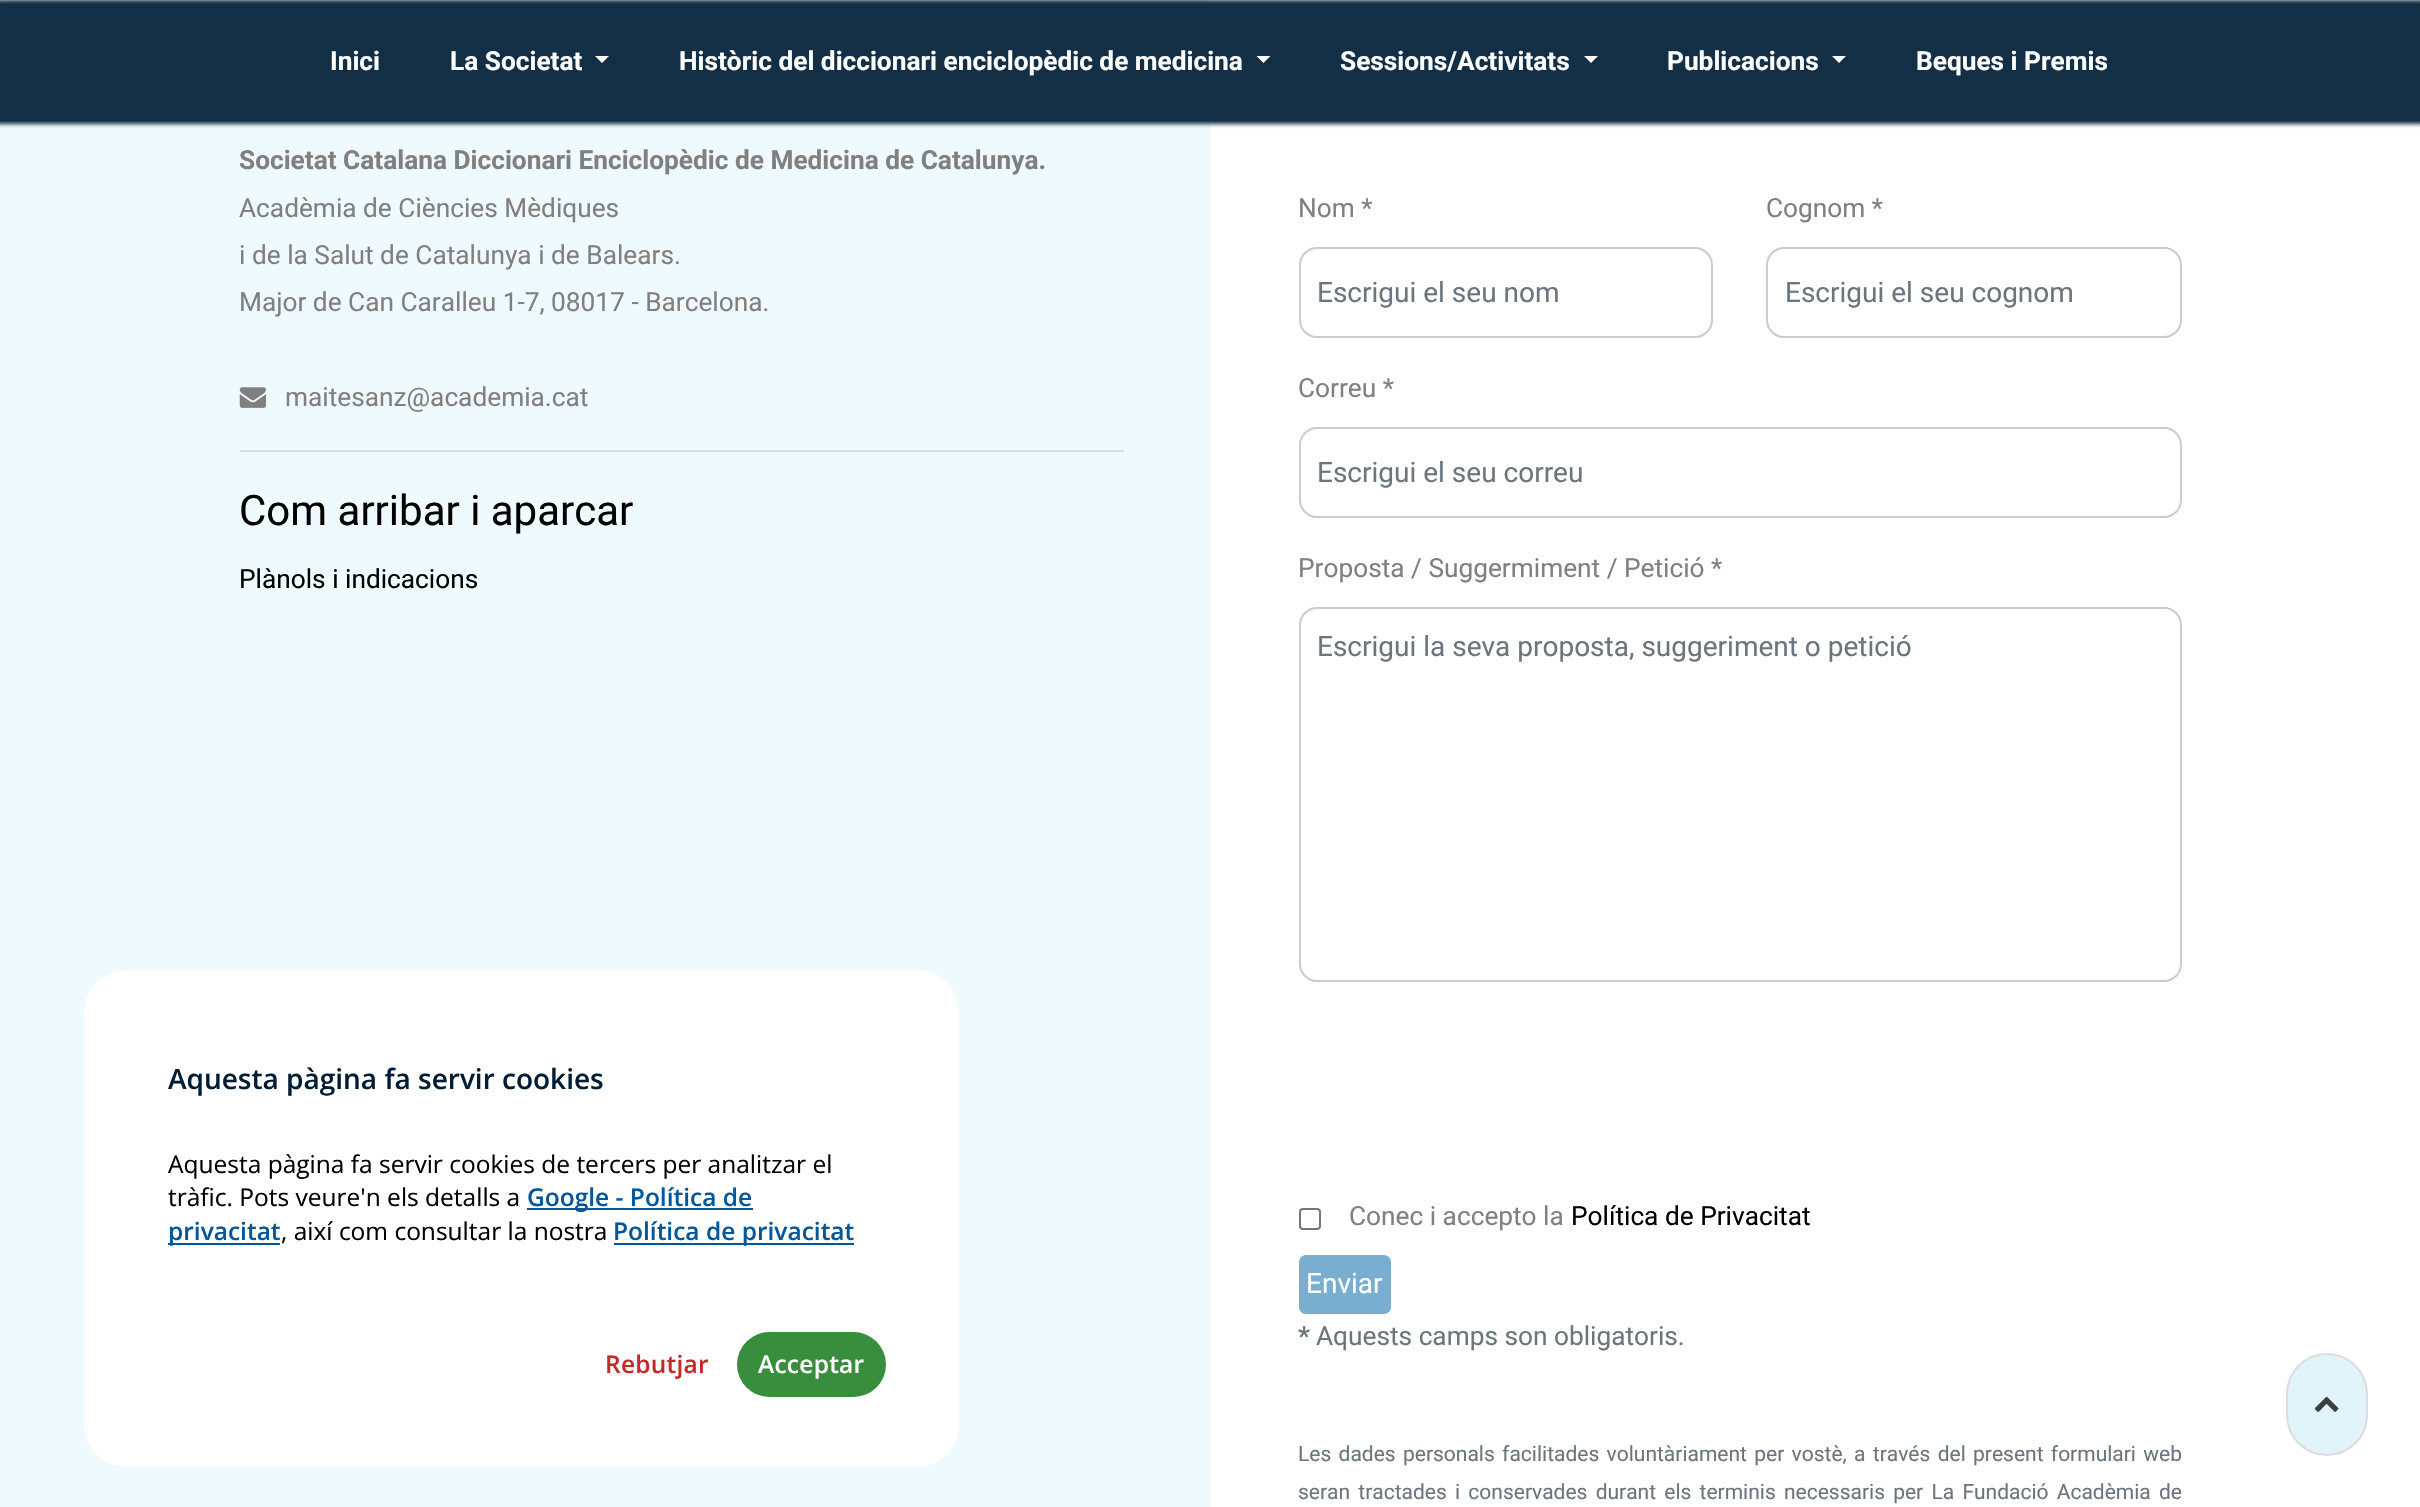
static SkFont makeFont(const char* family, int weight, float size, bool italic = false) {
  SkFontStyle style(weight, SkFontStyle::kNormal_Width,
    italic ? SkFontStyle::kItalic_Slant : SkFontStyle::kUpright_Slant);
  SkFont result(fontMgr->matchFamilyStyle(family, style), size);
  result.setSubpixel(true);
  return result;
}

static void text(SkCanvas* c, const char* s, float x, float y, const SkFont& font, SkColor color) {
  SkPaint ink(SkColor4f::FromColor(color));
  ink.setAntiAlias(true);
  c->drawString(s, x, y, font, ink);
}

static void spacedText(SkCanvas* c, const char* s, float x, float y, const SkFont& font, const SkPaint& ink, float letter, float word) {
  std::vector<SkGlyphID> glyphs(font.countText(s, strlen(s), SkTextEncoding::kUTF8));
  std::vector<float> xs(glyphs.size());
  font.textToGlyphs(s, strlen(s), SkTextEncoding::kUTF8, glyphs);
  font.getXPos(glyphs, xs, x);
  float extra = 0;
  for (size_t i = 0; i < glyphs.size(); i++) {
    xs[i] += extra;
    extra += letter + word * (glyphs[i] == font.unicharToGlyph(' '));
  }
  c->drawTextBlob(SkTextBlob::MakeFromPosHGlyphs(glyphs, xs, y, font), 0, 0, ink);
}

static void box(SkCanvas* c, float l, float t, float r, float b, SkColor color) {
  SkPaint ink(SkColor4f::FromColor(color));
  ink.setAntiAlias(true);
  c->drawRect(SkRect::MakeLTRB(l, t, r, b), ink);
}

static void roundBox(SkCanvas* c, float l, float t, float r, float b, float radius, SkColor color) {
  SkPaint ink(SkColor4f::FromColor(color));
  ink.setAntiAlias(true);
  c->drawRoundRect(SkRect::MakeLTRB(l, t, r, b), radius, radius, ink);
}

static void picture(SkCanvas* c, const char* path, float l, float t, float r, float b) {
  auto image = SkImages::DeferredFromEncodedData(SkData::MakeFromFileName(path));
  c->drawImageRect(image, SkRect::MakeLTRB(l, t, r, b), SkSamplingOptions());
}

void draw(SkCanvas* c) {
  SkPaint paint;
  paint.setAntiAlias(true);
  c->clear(0xffffffff);
  box(c, 0, 0, 1211, 1507, 0xffeffafe);
  paint.setColor(0xff132f46);
  paint.setMaskFilter(SkMaskFilter::MakeBlur(kNormal_SkBlurStyle, 2));
  c->drawRect(SkRect::MakeLTRB(-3, 0, 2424, 124), paint);
  paint.setMaskFilter(nullptr);
  box(c, 0, 4, 2420, 121, 0xff132f46);
  SkFont face1 = makeFont("Roboto", 700, 26.25f);
  text(c, "Inici", 330, 70, face1, 0xffffffff);
  text(c, "La Societat", 450, 70, face1, 0xffffffff);
  paint.setColor(0xffffffff);
  c->drawPath(SkPathBuilder().moveTo(595, 56).lineTo(609, 56).lineTo(602, 63).close().detach(), paint);
  text(c, "Històric del diccionari enciclopèdic de medicina", 679, 70, face1, 0xffffffff);
  c->drawPath(SkPathBuilder().moveTo(1256.5f, 56).lineTo(1270.5f, 56).lineTo(1263.5f, 63).close().detach(), paint);
  text(c, "Sessions/Activitats", 1340, 70, face1, 0xffffffff);
  c->drawPath(SkPathBuilder().moveTo(1584, 56).lineTo(1598, 56).lineTo(1591, 63).close().detach(), paint);
  text(c, "Publicacions", 1667, 70, face1, 0xffffffff);
  c->drawPath(SkPathBuilder().moveTo(1832, 56).lineTo(1846, 56).lineTo(1839, 63).close().detach(), paint);
  text(c, "Beques i Premis", 1916, 70, face1, 0xffffffff);
  text(c, "Societat Catalana Diccionari Enciclopèdic de Medicina de Catalunya.", 239, 169, face1, 0xff808080);
  SkFont face2 = makeFont("Roboto", 400, 26.25f);
  text(c, "Acadèmia de Ciències Mèdiques", 239, 217, face2, 0xff808080);
  text(c, "i de la Salut de Catalunya i de Balears.", 239, 264, face2, 0xff808080);
  text(c, "Major de Can Caralleu 1-7, 08017 - Barcelona.", 239, 311, face2, 0xff808080);
  picture(c, "img_01.png", 239, 387, 266, 408);
  text(c, "maitesanz@academia.cat", 285, 406, face2, 0xff808080);
  box(c, 240, 450, 1124, 452, 0xffd7e1e5);
  SkFont face3 = makeFont("Roboto", 400, 42);
  text(c, "Com arribar i aparcar", 239, 525, face3, 0xff000000);
  text(c, "Plànols i indicacions", 239, 588, face2, 0xff000000);
  text(c, "Nom *", 1298, 217, face2, 0xff808080);
  paint.setStyle(SkPaint::kStroke_Style);
  paint.setStrokeWidth(2);
  paint.setColor(0xffcccccc);
  c->drawRoundRect(SkRect::MakeLTRB(1300, 248, 1712, 337), 17, 17, paint);
  SkFont face4 = makeFont("Roboto", 400, 28);
  text(c, "Escrigui el seu nom", 1317, 302, face4, 0xff6c757d);
  text(c, "Cognom *", 1766, 217, face2, 0xff808080);
  c->drawRoundRect(SkRect::MakeLTRB(1767, 248, 2181, 337), 17, 17, paint);
  text(c, "Escrigui el seu cognom", 1785, 302, face4, 0xff6c757d);
  text(c, "Correu *", 1298, 397, face2, 0xff808080);
  c->drawRoundRect(SkRect::MakeLTRB(1300, 428, 2181, 517), 17, 17, paint);
  text(c, "Escrigui el seu correu", 1317, 482, face4, 0xff6c757d);
  text(c, "Proposta / Suggermiment / Petició *", 1298, 577, face2, 0xff808080);
  c->drawRoundRect(SkRect::MakeLTRB(1300, 608, 2181, 981), 17, 17, paint);
  text(c, "Escrigui la seva proposta, suggeriment o petició", 1317, 656, face4, 0xff6c757d);
  paint.setColor(0xff767676);
  c->drawRoundRect(SkRect::MakeLTRB(1300, 1209, 1320, 1229), 3, 3, paint);
  text(c, "Conec i accepto la", 1349, 1225, face2, 0xff808080);
  text(c, "Política de Privacitat", 1571, 1225, face2, 0xff000000);
  paint.setStyle(SkPaint::kFill_Style);
  paint.setColor(0xff7aaed1);
  c->drawRoundRect(SkRect::MakeLTRB(1300, 1256, 1390, 1313), 6, 6, paint);
  paint.setStyle(SkPaint::kStroke_Style);
  c->drawRoundRect(SkRect::MakeLTRB(1300, 1256, 1390, 1313), 6, 6, paint);
  text(c, "Enviar", 1306, 1293, face4, 0xffffffff);
  text(c, "*", 1298, 1345, face1, 0xff6c757d);
  text(c, "Aquests camps son obligatoris.", 1316, 1345, face2, 0xff6c757d);
  SkFont face5 = makeFont("Roboto", 400, 21);
  paint.setStyle(SkPaint::kFill_Style);
  paint.setColor(0xff6c757d);
  spacedText(c, "Les dades personals facilitades voluntàriament per vostè, a través del present formulari web", 1298, 1461, face5, paint, 0, 2.1f);
  spacedText(c, "seran tractades i conservades durant els terminis necessaris per La Fundació Acadèmia de", 1298, 1499, face5, paint, 0, 3);
  roundBox(c, 84, 970, 959, 1467, 42, 0xffffffff);
  SkFont face6 = makeFont("Open Sans", 600, 28);
  text(c, "Aquesta pàgina fa servir cookies", 168, 1089, face6, 0xff001d35);
  SkFont face7 = makeFont("Open Sans", 400, 24.5f);
  text(c, "Aquesta pàgina fa servir cookies de tercers per analitzar el", 168, 1173, face7, 0xff000000);
  text(c, "tràfic. Pots veure'n els detalls a", 168, 1206, face7, 0xff000000);
  box(c, 527, 1208, 753, 1210, 0xff01579b);
  SkFont face8 = makeFont("Open Sans", 600, 24.5f);
  text(c, "Google - Política de", 527, 1206, face8, 0xff01579b);
  box(c, 168, 1243, 280, 1245, 0xff01579b);
  text(c, "privacitat", 168, 1240, face8, 0xff01579b);
  text(c, ", així com consultar la nostra", 281, 1240, face7, 0xff000000);
  box(c, 614, 1243, 854, 1245, 0xff01579b);
  text(c, "Política de privacitat", 613, 1240, face8, 0xff01579b);
  paint.setColor(0xffc62828);
  spacedText(c, "Rebutjar", 605, 1373, face8, paint, 0.25f, 0);
  roundBox(c, 737, 1332, 886, 1397, 32.5f, 0xff388e3c);
  paint.setColor(0xffffffff);
  spacedText(c, "Acceptar", 758, 1373, face8, paint, 0.25f, 0);
  paint.setColor(0xffe0f4fa);
  c->drawRoundRect(SkRect::MakeLTRB(2287, 1354, 2367, 1455), 40, 40, paint);
  paint.setStyle(SkPaint::kStroke_Style);
  paint.setColor(0xffdddddd);
  c->drawRoundRect(SkRect::MakeLTRB(2287, 1354, 2367, 1455), 40, 40, paint);
  picture(c, "img_02.png", 2314, 1396, 2339, 1412);
}
